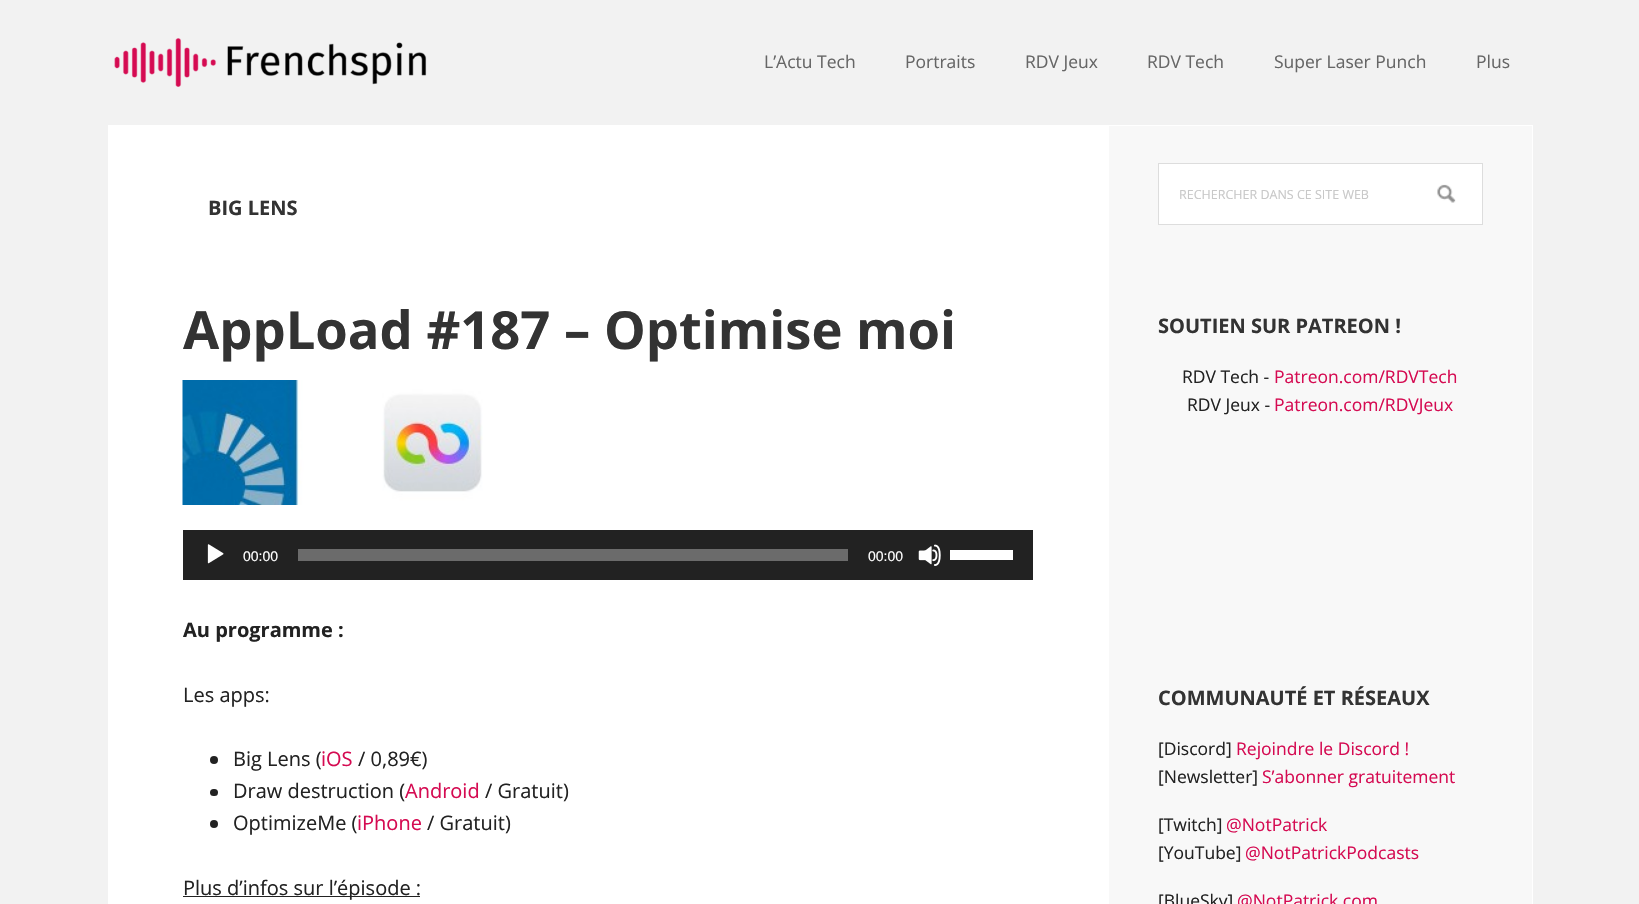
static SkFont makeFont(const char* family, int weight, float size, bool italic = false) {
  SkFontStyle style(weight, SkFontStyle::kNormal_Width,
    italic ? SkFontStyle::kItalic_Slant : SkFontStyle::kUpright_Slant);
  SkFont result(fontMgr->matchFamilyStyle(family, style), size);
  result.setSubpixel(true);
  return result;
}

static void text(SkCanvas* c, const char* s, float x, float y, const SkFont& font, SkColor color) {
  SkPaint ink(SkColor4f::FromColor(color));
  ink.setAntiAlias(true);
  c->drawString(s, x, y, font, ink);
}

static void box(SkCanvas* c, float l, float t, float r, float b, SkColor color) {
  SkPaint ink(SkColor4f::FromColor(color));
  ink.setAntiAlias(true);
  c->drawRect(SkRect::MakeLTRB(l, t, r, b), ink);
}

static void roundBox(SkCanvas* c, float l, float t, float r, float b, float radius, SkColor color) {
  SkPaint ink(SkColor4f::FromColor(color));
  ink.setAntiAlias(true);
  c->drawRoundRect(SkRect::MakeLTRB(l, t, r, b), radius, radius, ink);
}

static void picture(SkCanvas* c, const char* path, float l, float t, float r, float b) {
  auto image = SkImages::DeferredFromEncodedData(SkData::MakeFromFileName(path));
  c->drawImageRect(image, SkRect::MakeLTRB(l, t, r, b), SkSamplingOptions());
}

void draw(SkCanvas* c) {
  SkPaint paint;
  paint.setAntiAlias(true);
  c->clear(0xfff2f2f2);
  picture(c, "img_01.png", 114, 38, 427, 87);
  SkFont face1 = makeFont("Open Sans", 400, 17.5f);
  text(c, "L’Actu Tech", 764, 68, face1, 0xff666666);
  text(c, "Portraits", 905, 68, face1, 0xff666666);
  text(c, "RDV Jeux", 1025, 68, face1, 0xff666666);
  text(c, "RDV Tech", 1147, 68, face1, 0xff666666);
  text(c, "Super Laser Punch", 1274, 68, face1, 0xff666666);
  text(c, "Plus", 1476, 68, face1, 0xff666666);
  box(c, 108, 125, 1108, 904, 0xffffffff);
  SkFont face2 = makeFont("Open Sans", 700, 20);
  text(c, "BIG LENS", 208, 215, face2, 0xff333333);
  SkFont face3 = makeFont("Open Sans", 700, 52.5f);
  text(c, "AppLoad #187 – Optimise moi", 183, 349, face3, 0xff333333);
  picture(c, "img_02.png", 182, 380, 483, 505);
  box(c, 183, 530, 1033, 580, 0xff222222);
  picture(c, "img_03.png", 207, 544, 224, 564);
  SkFont face4 = makeFont("Liberation Sans", 400, 14);
  text(c, "00:00", 243, 561, face4, 0xffffffff);
  box(c, 298, 549, 848, 561, 0xff6b6b6b);
  text(c, "00:00", 868, 561, face4, 0xffffffff);
  picture(c, "img_04.png", 918, 544, 941, 566);
  box(c, 950, 550, 1013, 560, 0xffffffff);
  text(c, "Au programme :", 183, 637, face2, 0xff222222);
  SkFont face5 = makeFont("Open Sans", 400, 20);
  text(c, "Les apps:", 183, 702, face5, 0xff222222);
  paint.setColor(0xff222222);
  c->drawCircle(214, 760, 4, paint);
  text(c, "Big Lens (", 233, 766, face5, 0xff222222);
  text(c, "iOS", 321, 766, face5, 0xffd50b52);
  text(c, "/ 0,89€)", 358, 766, face5, 0xff222222);
  roundBox(c, 210, 789, 218, 796, 3.5f, 0xff222222);
  text(c, "Draw destruction (", 233, 798, face5, 0xff222222);
  text(c, "Android", 405, 798, face5, 0xffd50b52);
  text(c, "/ Gratuit)", 485, 798, face5, 0xff222222);
  c->drawCircle(214, 824, 4, paint);
  text(c, "OptimizeMe (", 233, 830, face5, 0xff222222);
  text(c, "iPhone", 357, 830, face5, 0xffd50b52);
  text(c, "/ Gratuit)", 427, 830, face5, 0xff222222);
  box(c, 183, 896, 420, 897, 0xff222222);
  text(c, "Plus d’infos sur l’épisode :", 183, 895, face5, 0xff222222);
  paint.setColor(0xfff8f8f8);
  c->drawRect(SkRect::MakeLTRB(1108.5f, 125.5f, 1532.5f, 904.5f), paint);
  paint.setStyle(SkPaint::kStroke_Style);
  paint.setStrokeWidth(1);
  paint.setColor(0xffffffff);
  c->drawRect(SkRect::MakeLTRB(1108.5f, 125.5f, 1532.5f, 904.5f), paint);
  box(c, 1159, 164, 1482, 224, 0xffffffff);
  picture(c, "img_05.png", 1437, 184, 1456, 203);
  paint.setColor(0xffdddddd);
  c->drawRect(SkRect::MakeLTRB(1158.5f, 163.5f, 1482.5f, 224.5f), paint);
  SkFont face6 = makeFont("Open Sans", 400, 12.5f);
  text(c, "RECHERCHER DANS CE SITE WEB", 1179, 199, face6, 0xffc8c8c8);
  text(c, "SOUTIEN SUR PATREON !", 1158, 333, face2, 0xff333333);
  text(c, "RDV Tech -", 1182, 383, face1, 0xff222222);
  text(c, "Patreon.com/RDVTech", 1274, 383, face1, 0xffd50b52);
  text(c, "RDV Jeux -", 1187, 411, face1, 0xff222222);
  text(c, "Patreon.com/RDVJeux", 1274, 411, face1, 0xffd50b52);
  text(c, "COMMUNAUTÉ ET RÉSEAUX", 1158, 705, face2, 0xff333333);
  text(c, "[Discord]", 1158, 755, face1, 0xff222222);
  text(c, "Rejoindre le Discord !", 1236, 755, face1, 0xffd50b52);
  text(c, "[Newsletter]", 1158, 783, face1, 0xff222222);
  text(c, "S’abonner gratuitement", 1262, 783, face1, 0xffd50b52);
  text(c, "[Twitch]", 1158, 831, face1, 0xff222222);
  text(c, "@NotPatrick", 1226, 831, face1, 0xffd50b52);
  text(c, "[YouTube]", 1158, 859, face1, 0xff222222);
  text(c, "@NotPatrickPodcasts", 1245, 859, face1, 0xffd50b52);
  text(c, "[BlueSky]", 1158, 907, face1, 0xff222222);
  text(c, "@NotPatrick.com", 1237, 907, face1, 0xffd50b52);
}
